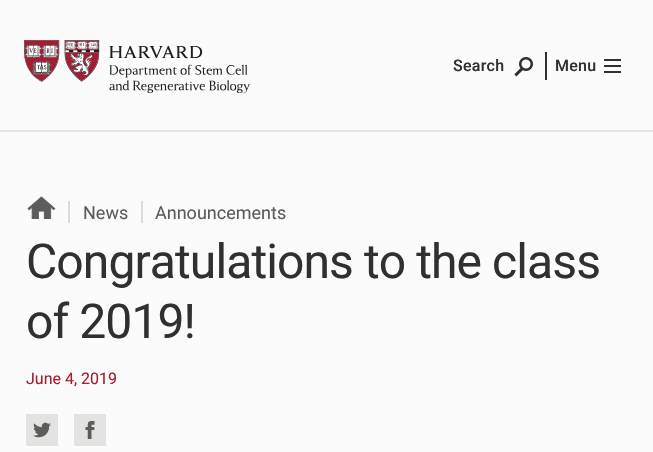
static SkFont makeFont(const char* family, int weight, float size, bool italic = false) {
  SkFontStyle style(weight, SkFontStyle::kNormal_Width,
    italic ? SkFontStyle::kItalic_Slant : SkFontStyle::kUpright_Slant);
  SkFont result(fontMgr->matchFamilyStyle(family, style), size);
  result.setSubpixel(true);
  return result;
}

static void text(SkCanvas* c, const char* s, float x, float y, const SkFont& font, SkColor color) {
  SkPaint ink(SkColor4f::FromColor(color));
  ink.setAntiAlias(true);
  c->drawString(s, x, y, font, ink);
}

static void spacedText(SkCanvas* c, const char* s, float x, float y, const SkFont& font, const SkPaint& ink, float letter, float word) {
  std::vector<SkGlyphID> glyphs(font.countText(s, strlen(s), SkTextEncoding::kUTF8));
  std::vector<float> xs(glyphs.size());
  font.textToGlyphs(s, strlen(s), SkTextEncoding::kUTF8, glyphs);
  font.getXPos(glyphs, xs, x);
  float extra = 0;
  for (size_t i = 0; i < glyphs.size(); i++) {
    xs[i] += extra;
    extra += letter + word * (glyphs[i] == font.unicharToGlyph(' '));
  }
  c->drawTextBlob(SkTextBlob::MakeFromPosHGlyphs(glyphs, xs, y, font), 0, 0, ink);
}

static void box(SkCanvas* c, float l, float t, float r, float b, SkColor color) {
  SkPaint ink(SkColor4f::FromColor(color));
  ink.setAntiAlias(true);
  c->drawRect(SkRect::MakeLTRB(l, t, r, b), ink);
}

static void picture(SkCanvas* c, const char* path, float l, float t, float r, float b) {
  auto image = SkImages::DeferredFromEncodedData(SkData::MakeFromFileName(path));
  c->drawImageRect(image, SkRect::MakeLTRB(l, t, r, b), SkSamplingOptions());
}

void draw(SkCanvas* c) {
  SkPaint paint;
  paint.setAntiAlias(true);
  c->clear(0xfffbfbfb);
  box(c, 0, 130, 653, 132, 0xffe3e3e1);
  picture(c, "img_01.png", 24, 40, 250, 93);
  SkFont face1 = makeFont("Roboto", 500, 16);
  paint.setColor(0xff30302f);
  spacedText(c, "Search", 453, 71, face1, paint, 0.25f, 0);
  picture(c, "img_02.png", 514, 57, 533, 77);
  box(c, 545, 52, 547, 80, 0xff30302f);
  spacedText(c, "Menu", 555, 71, face1, paint, 0.25f, 0);
  picture(c, "img_03.png", 604, 59, 621, 73);
  picture(c, "img_04.png", 27, 196, 56, 219);
  box(c, 68, 201, 70, 223, 0xffdcdbdb);
  SkFont face2 = makeFont("Roboto", 400, 18);
  text(c, "News", 83, 219, face2, 0xff5e5c5b);
  box(c, 141, 201, 143, 223, 0xffdcdbdb);
  text(c, "Announcements", 155, 219, face2, 0xff5e5c5b);
  SkFont face3 = makeFont("Roboto", 400, 48);
  spacedText(c, "Congratulations to the class", 26, 278, face3, paint, -0.9f, 0);
  spacedText(c, "of 2019!", 26, 338, face3, paint, -0.9f, 0);
  SkFont face4 = makeFont("Roboto", 400, 16);
  text(c, "June 4, 2019", 26, 384, face4, 0xffa61c30);
  box(c, 26, 414, 58, 446, 0xffe3e3e1);
  picture(c, "img_05.png", 33, 422, 51, 438);
  box(c, 74, 414, 106, 446, 0xffe3e3e1);
  picture(c, "img_06.png", 85, 421, 95, 439);
}
